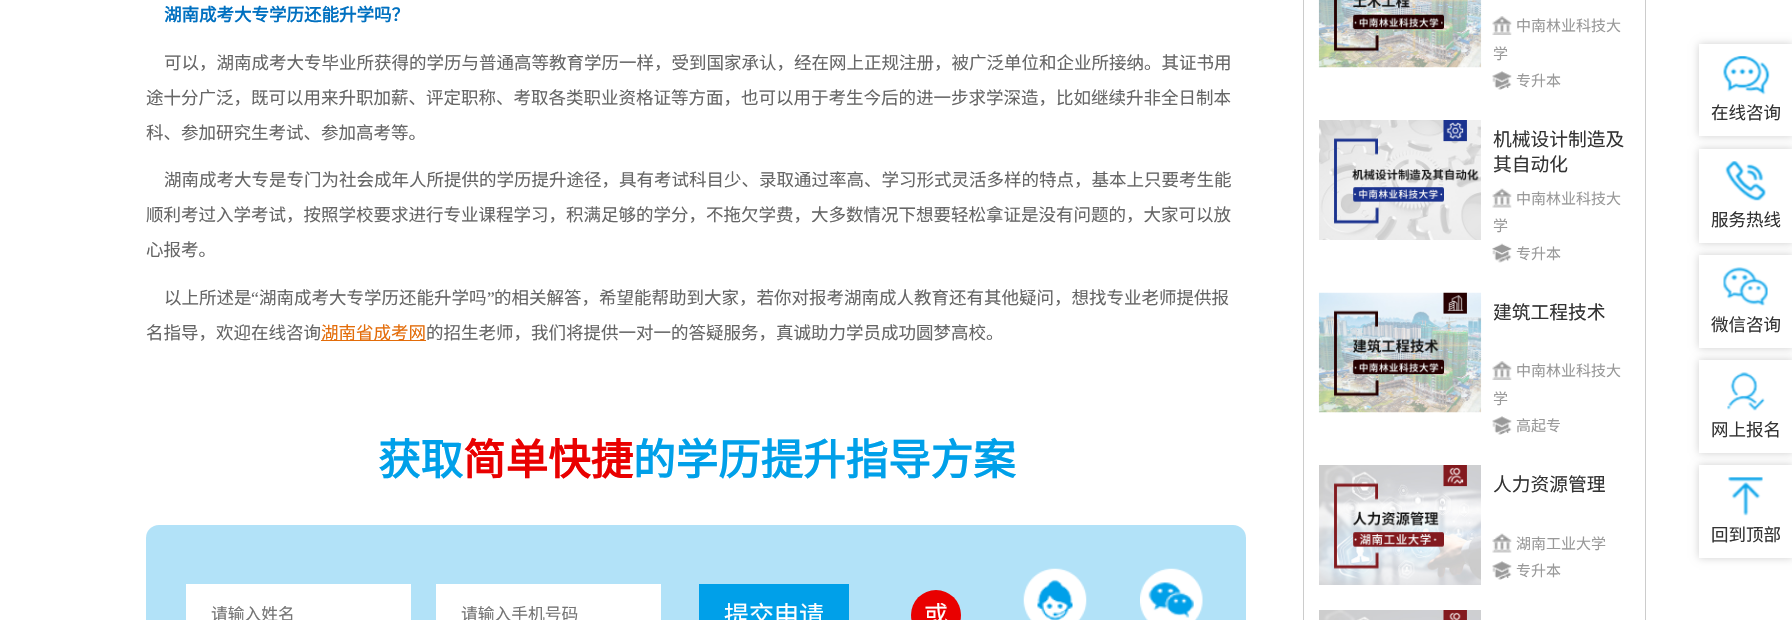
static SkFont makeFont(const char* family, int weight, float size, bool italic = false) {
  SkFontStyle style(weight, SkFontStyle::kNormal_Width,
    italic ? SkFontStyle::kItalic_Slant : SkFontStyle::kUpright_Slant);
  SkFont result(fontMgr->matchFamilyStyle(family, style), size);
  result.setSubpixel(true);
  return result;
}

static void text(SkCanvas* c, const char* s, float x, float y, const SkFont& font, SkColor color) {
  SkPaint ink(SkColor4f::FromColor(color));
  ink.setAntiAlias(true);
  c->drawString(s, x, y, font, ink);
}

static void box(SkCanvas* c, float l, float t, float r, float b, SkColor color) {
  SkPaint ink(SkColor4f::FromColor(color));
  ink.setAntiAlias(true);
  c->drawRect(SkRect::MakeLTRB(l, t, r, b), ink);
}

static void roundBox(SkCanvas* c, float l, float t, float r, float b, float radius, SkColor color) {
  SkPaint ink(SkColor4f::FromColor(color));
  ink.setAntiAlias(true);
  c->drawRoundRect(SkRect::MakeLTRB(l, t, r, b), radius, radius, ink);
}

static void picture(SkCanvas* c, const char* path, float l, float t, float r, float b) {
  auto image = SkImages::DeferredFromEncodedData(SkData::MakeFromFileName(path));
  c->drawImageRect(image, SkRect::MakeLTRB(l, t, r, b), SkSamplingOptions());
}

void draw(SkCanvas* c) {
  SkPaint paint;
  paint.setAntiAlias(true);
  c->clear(0xffffffff);
  SkFont face1 = makeFont("Noto Sans CJK SC", 700, 17.5f);
  text(c, "湖南成考大专学历还能升学吗？", 164, 21, face1, 0xff0070c0);
  SkFont face2 = makeFont("Noto Sans CJK SC", 400, 17.5f);
  text(c, "可以，湖南成考大专毕业所获得的学历与普通高等教育学历一样，受到国家承认，经在网上正规注册，被广泛单位和企业所接纳。其证书用", 164, 69, face2, 0xff666666);
  text(c, "途十分广泛，既可以用来升职加薪、评定职称、考取各类职业资格证等方面，也可以用于考生今后的进一步求学深造，比如继续升非全日制本", 146, 104, face2, 0xff666666);
  text(c, "科、参加研究生考试、参加高考等。", 146, 139, face2, 0xff666666);
  text(c, "湖南成考大专是专门为社会成年人所提供的学历提升途径，具有考试科目少、录取通过率高、学习形式灵活多样的特点，基本上只要考生能", 164, 186, face2, 0xff666666);
  text(c, "顺利考过入学考试，按照学校要求进行专业课程学习，积满足够的学分，不拖欠学费，大多数情况下想要轻松拿证是没有问题的，大家可以放", 146, 221, face2, 0xff666666);
  text(c, "心报考。", 146, 256, face2, 0xff666666);
  text(c, "以上所述是", 164, 304, face2, 0xff666666);
  SkFont face3 = makeFont("Liberation Serif", 400, 17.5f);
  text(c, "“", 251, 304, face3, 0xff666666);
  text(c, "湖南成考大专学历还能升学吗", 259, 304, face2, 0xff666666);
  text(c, "”", 487, 304, face3, 0xff666666);
  text(c, "的相关解答，希望能帮助到大家，若你对报考湖南成人教育还有其他疑问，想找专业老师提供报", 494, 304, face2, 0xff666666);
  text(c, "名指导，欢迎在线咨询", 146, 339, face2, 0xff666666);
  box(c, 321, 340, 426, 341, 0xffe36c09);
  text(c, "湖南省成考网", 321, 339, face2, 0xffe36c09);
  text(c, "的招生老师，我们将提供一对一的答疑服务，真诚助力学员成功圆梦高校。", 426, 339, face2, 0xff666666);
  SkFont face4 = makeFont("Noto Sans CJK SC", 700, 42.5f);
  text(c, "获取", 378, 475, face4, 0xff00a0e9);
  text(c, "简单快捷", 463, 475, face4, 0xffe90000);
  text(c, "的学历提升指导方案", 633, 475, face4, 0xff00a0e9);
  roundBox(c, 146, 525, 1246, 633, 13, 0xffb2e2f8);
  box(c, 186, 584, 411, 620, 0xffffffff);
  SkFont face5 = makeFont("Noto Sans CJK SC", 400, 16.75f);
  text(c, "请输入姓名", 211, 620, face5, 0xff757575);
  box(c, 436, 584, 661, 620, 0xffffffff);
  text(c, "请输入手机号码", 461, 620, face5, 0xff757575);
  box(c, 699, 584, 849, 620, 0xff00a0e9);
  SkFont face6 = makeFont("Noto Sans CJK SC", 400, 25);
  text(c, "提交申请", 724, 624, face6, 0xffffffff);
  paint.setColor(0xffe90000);
  c->drawCircle(936, 615, 25, paint);
  SkFont face7 = makeFont("Noto Sans CJK SC", 400, 24);
  text(c, "或", 924, 623, face7, 0xffffffff);
  picture(c, "img_01.png", 1023, 568, 1087, 620);
  picture(c, "img_02.png", 1140, 568, 1203, 620);
  paint.setStyle(SkPaint::kStroke_Style);
  paint.setStrokeWidth(1);
  paint.setColor(0xffcccccc);
  c->drawRect(SkRect::MakeLTRB(1303.5f, -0.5f, 1645.5f, 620.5f), paint);
  picture(c, "img_03.png", 1318, 0, 1482, 68);
  picture(c, "img_04.png", 1492, 16, 1512, 35);
  SkFont face8 = makeFont("Noto Sans CJK SC", 400, 15);
  text(c, "中南林业科技大", 1516, 31, face8, 0xff999999);
  text(c, "学", 1493, 59, face8, 0xff999999);
  picture(c, "img_05.png", 1492, 71, 1512, 90);
  text(c, "专升本", 1516, 86, face8, 0xff999999);
  picture(c, "img_06.png", 1319, 120, 1481, 240);
  SkFont face9 = makeFont("Noto Sans CJK SC", 400, 18.75f);
  text(c, "机械设计制造及", 1493, 146, face9, 0xff333333);
  text(c, "其自动化", 1493, 171, face9, 0xff333333);
  picture(c, "img_07.png", 1492, 188, 1512, 208);
  text(c, "中南林业科技大", 1516, 204, face8, 0xff999999);
  text(c, "学", 1493, 231, face8, 0xff999999);
  picture(c, "img_08.png", 1492, 243, 1512, 263);
  text(c, "专升本", 1516, 259, face8, 0xff999999);
  picture(c, "img_09.png", 1318, 292, 1482, 413);
  text(c, "建筑工程技术", 1493, 319, face9, 0xff333333);
  picture(c, "img_04.png", 1492, 361, 1512, 380);
  text(c, "中南林业科技大", 1516, 376, face8, 0xff999999);
  text(c, "学", 1493, 404, face8, 0xff999999);
  picture(c, "img_05.png", 1492, 416, 1512, 435);
  text(c, "高起专", 1516, 431, face8, 0xff999999);
  picture(c, "img_10.png", 1319, 465, 1481, 585);
  text(c, "人力资源管理", 1493, 491, face9, 0xff333333);
  picture(c, "img_07.png", 1492, 533, 1512, 553);
  text(c, "湖南工业大学", 1516, 549, face8, 0xff999999);
  picture(c, "img_05.png", 1492, 561, 1512, 580);
  text(c, "专升本", 1516, 576, face8, 0xff999999);
  picture(c, "img_11.png", 1319, 610, 1481, 620);
  c->save();
  c->clipPath(SkPathBuilder(SkPathFillType::kEvenOdd).moveTo(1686, 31).lineTo(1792, 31).lineTo(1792, 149).lineTo(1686, 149).close().moveTo(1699, 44).lineTo(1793, 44).lineTo(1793, 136).lineTo(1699, 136).close().detach(), true);
  paint.setStyle(SkPaint::kFill_Style);
  paint.setColor(0xffd0d0d0);
  paint.setMaskFilter(SkMaskFilter::MakeBlur(kNormal_SkBlurStyle, 4));
  c->drawRect(SkRect::MakeLTRB(1699, 44, 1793, 136), paint);
  paint.setMaskFilter(nullptr);
  c->restore();
  picture(c, "img_12.png", 1723, 56, 1770, 95);
  text(c, "在线咨询", 1711, 119, face2, 0xff333333);
  paint.setMaskFilter(SkMaskFilter::MakeBlur(kNormal_SkBlurStyle, 4));
  c->drawRect(SkRect::MakeLTRB(1699, 149, 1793, 243), paint);
  paint.setMaskFilter(nullptr);
  box(c, 1699, 149, 1792, 243, 0xffffffff);
  picture(c, "img_13.png", 1725, 161, 1766, 201);
  text(c, "服务热线", 1711, 226, face2, 0xff333333);
  paint.setMaskFilter(SkMaskFilter::MakeBlur(kNormal_SkBlurStyle, 4));
  c->drawRect(SkRect::MakeLTRB(1699, 255, 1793, 348), paint);
  paint.setMaskFilter(nullptr);
  box(c, 1699, 255, 1792, 348, 0xffffffff);
  picture(c, "img_14.png", 1723, 267, 1768, 306);
  text(c, "微信咨询", 1711, 331, face2, 0xff333333);
  paint.setMaskFilter(SkMaskFilter::MakeBlur(kNormal_SkBlurStyle, 4));
  c->drawRect(SkRect::MakeLTRB(1699, 360, 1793, 453), paint);
  paint.setMaskFilter(nullptr);
  box(c, 1699, 360, 1792, 453, 0xffffffff);
  picture(c, "img_15.png", 1727, 372, 1765, 411);
  text(c, "网上报名", 1711, 436, face2, 0xff333333);
  paint.setMaskFilter(SkMaskFilter::MakeBlur(kNormal_SkBlurStyle, 4));
  c->drawRect(SkRect::MakeLTRB(1699, 465, 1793, 558), paint);
  paint.setMaskFilter(nullptr);
  box(c, 1699, 465, 1792, 558, 0xffffffff);
  picture(c, "img_16.png", 1728, 477, 1763, 516);
  text(c, "回到顶部", 1711, 541, face2, 0xff333333);
}
